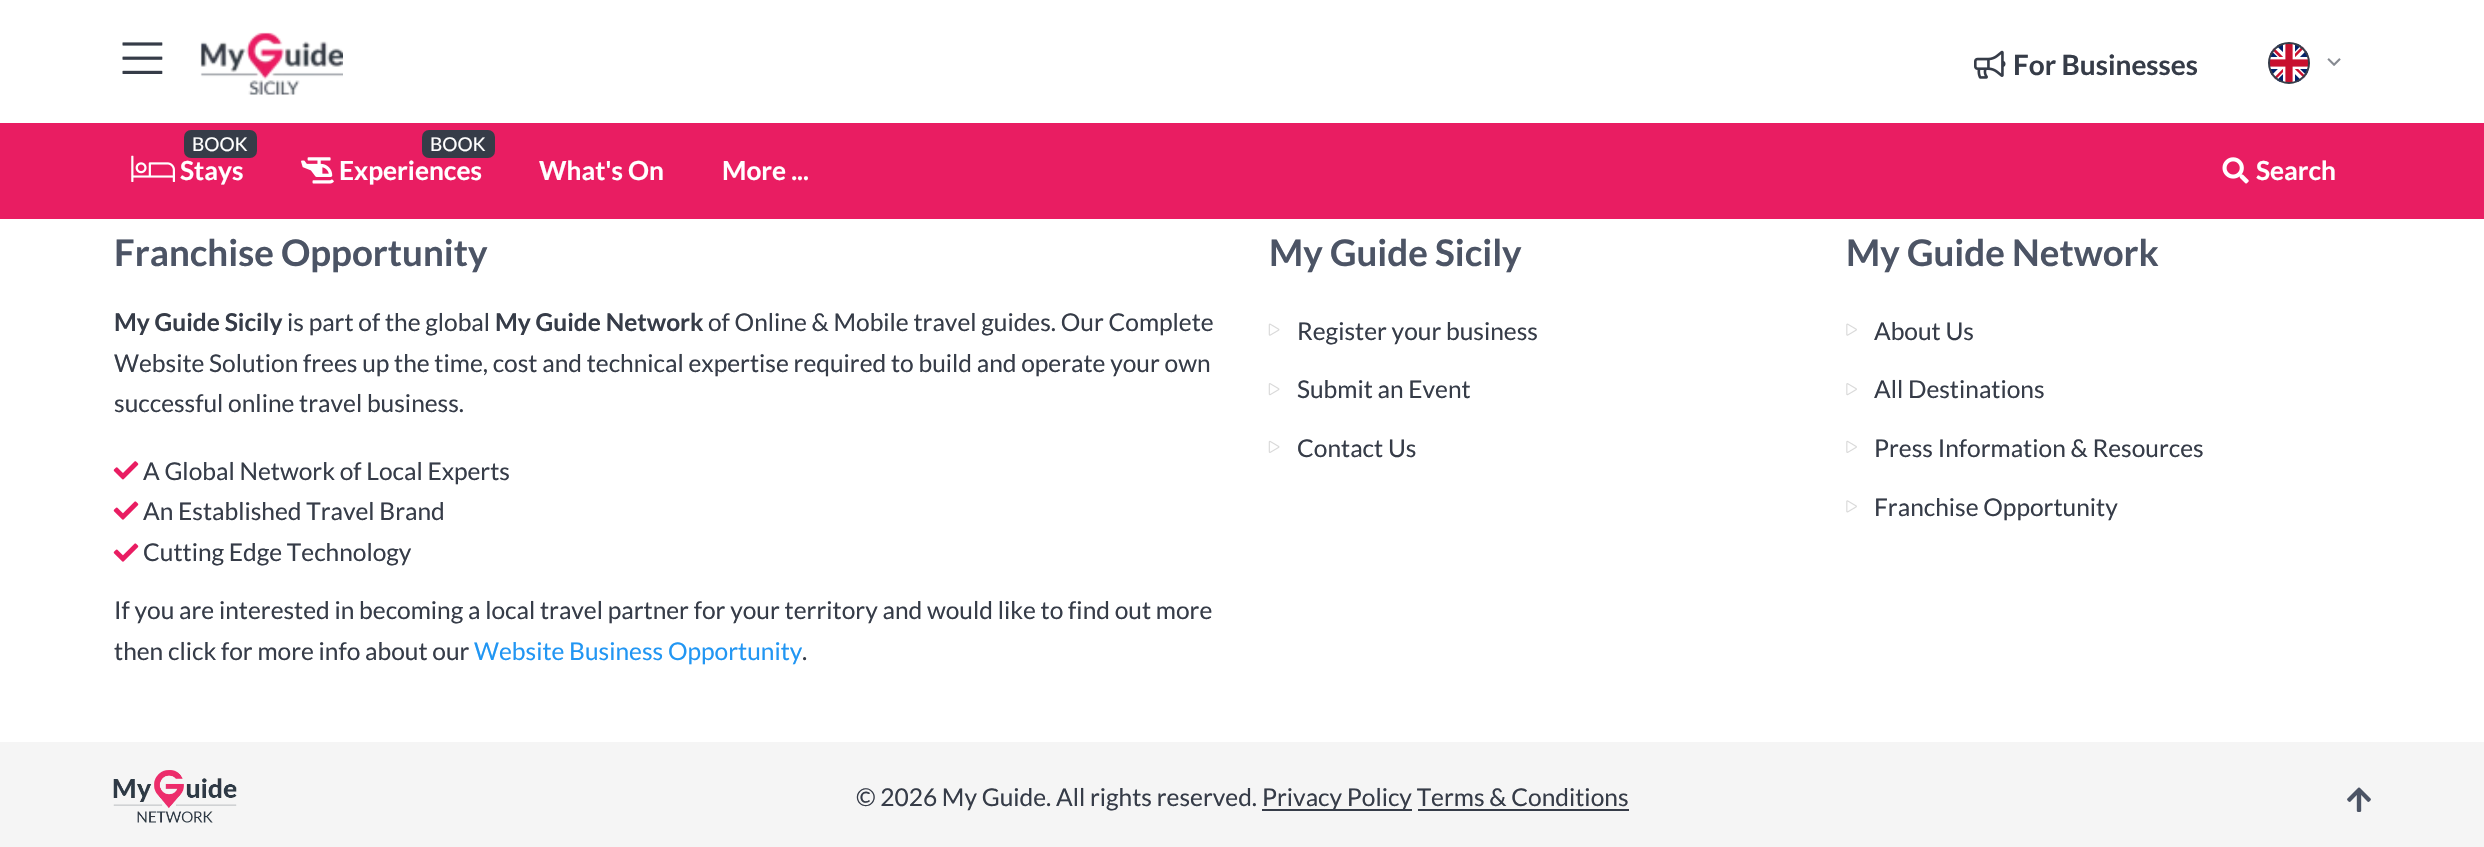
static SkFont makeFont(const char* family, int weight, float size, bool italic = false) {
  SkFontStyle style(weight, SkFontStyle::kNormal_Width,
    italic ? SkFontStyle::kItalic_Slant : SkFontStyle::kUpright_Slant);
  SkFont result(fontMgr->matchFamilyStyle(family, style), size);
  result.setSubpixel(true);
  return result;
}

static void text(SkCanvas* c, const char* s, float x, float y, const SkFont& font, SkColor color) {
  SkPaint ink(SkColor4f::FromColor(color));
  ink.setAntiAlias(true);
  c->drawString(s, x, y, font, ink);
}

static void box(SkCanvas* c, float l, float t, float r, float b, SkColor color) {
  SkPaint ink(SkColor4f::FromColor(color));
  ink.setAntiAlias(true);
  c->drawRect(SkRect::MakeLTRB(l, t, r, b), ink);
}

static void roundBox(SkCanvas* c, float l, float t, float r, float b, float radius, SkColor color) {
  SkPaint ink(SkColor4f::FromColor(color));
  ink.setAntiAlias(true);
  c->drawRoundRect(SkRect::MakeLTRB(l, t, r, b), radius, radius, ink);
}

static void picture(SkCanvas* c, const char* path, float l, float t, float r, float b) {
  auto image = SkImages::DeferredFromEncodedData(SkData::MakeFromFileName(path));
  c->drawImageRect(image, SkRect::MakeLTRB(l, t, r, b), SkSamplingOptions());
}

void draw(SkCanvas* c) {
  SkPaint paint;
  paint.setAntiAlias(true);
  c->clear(0xffffffff);
  picture(c, "img_01.png", 122, 42, 163, 74);
  picture(c, "img_02.png", 200, 32, 343, 95);
  picture(c, "img_03.png", 1974, 50, 2006, 79);
  SkFont face1 = makeFont("Lato", 700, 28);
  text(c, "For Businesses", 2013, 75, face1, 0xff363c48);
  picture(c, "img_04.png", 2270, 44, 2308, 82);
  paint.setStyle(SkPaint::kStroke_Style);
  paint.setStrokeWidth(2);
  paint.setColor(0xff363c48);
  c->drawCircle(2289, 63, 20, paint);
  picture(c, "img_05.png", 2327, 58, 2341, 66);
  box(c, 0, 123, 2484, 219, 0xffe91d62);
  roundBox(c, 184, 130, 257, 158, 7, 0xff363c48);
  SkFont face2 = makeFont("Lato", 400, 19);
  text(c, "BOOK", 192, 151, face2, 0xffffffff);
  picture(c, "img_06.png", 131, 155, 175, 182);
  SkFont face3 = makeFont("Lato", 700, 26.25f);
  text(c, "Stays", 180, 180, face3, 0xffffffff);
  roundBox(c, 422, 130, 495, 158, 7, 0xff363c48);
  text(c, "BOOK", 430, 151, face2, 0xffffffff);
  picture(c, "img_07.png", 301, 157, 334, 184);
  text(c, "Experiences", 339, 180, face3, 0xffffffff);
  text(c, "What's On", 539, 180, face3, 0xffffffff);
  text(c, "More ...", 722, 180, face3, 0xffffffff);
  picture(c, "img_08.png", 2222, 157, 2249, 184);
  text(c, "Search", 2256, 180, face3, 0xffffffff);
  SkFont face4 = makeFont("Lato", 700, 36.75f);
  text(c, "Franchise Opportunity", 114, 266, face4, 0xff4c5465);
  SkFont face5 = makeFont("Lato", 700, 24.5f);
  text(c, "My Guide Sicily", 114, 331, face5, 0xff363c48);
  SkFont face6 = makeFont("Lato", 400, 24.5f);
  text(c, "is part of the global", 287, 331, face6, 0xff363c48);
  text(c, "My Guide Network", 495, 331, face5, 0xff363c48);
  text(c, "of Online & Mobile travel guides. Our Complete", 708, 331, face6, 0xff363c48);
  text(c, "Website Solution frees up the time, cost and technical expertise required to build and operate your own", 114, 372, face6, 0xff363c48);
  text(c, "successful online travel business.", 114, 412, face6, 0xff363c48);
  picture(c, "img_09.png", 113, 461, 139, 480);
  text(c, "A Global Network of Local Experts", 143, 480, face6, 0xff363c48);
  picture(c, "img_10.png", 113, 501, 139, 520);
  text(c, "An Established Travel Brand", 143, 520, face6, 0xff363c48);
  picture(c, "img_10.png", 113, 543, 139, 562);
  text(c, "Cutting Edge Technology", 143, 561, face6, 0xff363c48);
  text(c, "If you are interested in becoming a local travel partner for your territory and would like to find out more", 114, 619, face6, 0xff363c48);
  text(c, "then click for more info about our", 114, 660, face6, 0xff363c48);
  text(c, "Website Business Opportunity", 474, 660, face6, 0xff2196f3);
  text(c, ".", 802, 660, face6, 0xff363c48);
  text(c, "My Guide Sicily", 1269, 266, face4, 0xff4c5465);
  picture(c, "img_11.png", 1268, 323, 1280, 336);
  text(c, "Register your business", 1297, 340, face6, 0xff363c48);
  picture(c, "img_12.png", 1268, 383, 1280, 396);
  text(c, "Submit an Event", 1297, 398, face6, 0xff363c48);
  picture(c, "img_13.png", 1268, 440, 1280, 453);
  text(c, "Contact Us", 1297, 457, face6, 0xff363c48);
  text(c, "My Guide Network", 1846, 266, face4, 0xff4c5465);
  picture(c, "img_14.png", 1846, 323, 1857, 336);
  text(c, "About Us", 1874, 340, face6, 0xff363c48);
  picture(c, "img_15.png", 1846, 383, 1857, 396);
  text(c, "All Destinations", 1874, 398, face6, 0xff363c48);
  picture(c, "img_16.png", 1846, 440, 1857, 453);
  text(c, "Press Information & Resources", 1874, 457, face6, 0xff363c48);
  picture(c, "img_17.png", 1846, 500, 1857, 513);
  text(c, "Franchise Opportunity", 1874, 516, face6, 0xff363c48);
  box(c, 0, 742, 2484, 847, 0xfff5f5f5);
  picture(c, "img_18.png", 113, 770, 237, 823);
  text(c, "© 2026 My Guide. All rights reserved.", 856, 806, face6, 0xff363c48);
  box(c, 1262, 809, 1412, 811, 0xff363c48);
  text(c, "Privacy Policy Terms & Conditions", 1262, 806, face6, 0xff363c48);
  box(c, 1418, 809, 1629, 811, 0xff363c48);
  picture(c, "img_19.png", 2347, 787, 2371, 812);
}
